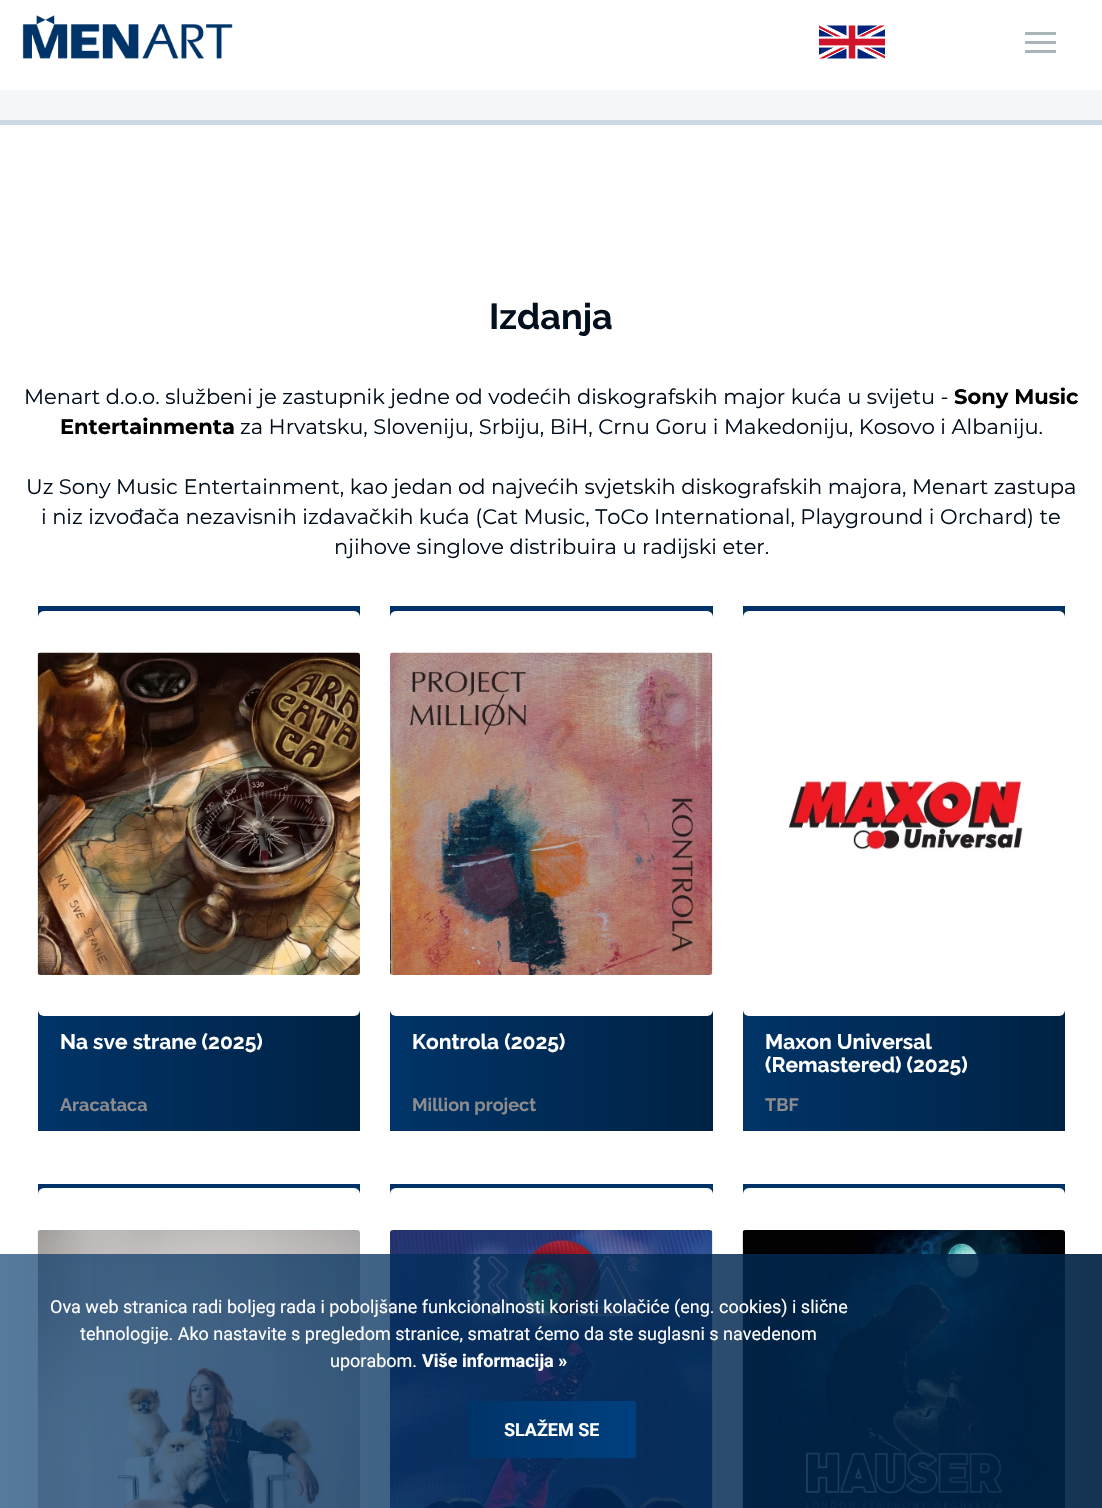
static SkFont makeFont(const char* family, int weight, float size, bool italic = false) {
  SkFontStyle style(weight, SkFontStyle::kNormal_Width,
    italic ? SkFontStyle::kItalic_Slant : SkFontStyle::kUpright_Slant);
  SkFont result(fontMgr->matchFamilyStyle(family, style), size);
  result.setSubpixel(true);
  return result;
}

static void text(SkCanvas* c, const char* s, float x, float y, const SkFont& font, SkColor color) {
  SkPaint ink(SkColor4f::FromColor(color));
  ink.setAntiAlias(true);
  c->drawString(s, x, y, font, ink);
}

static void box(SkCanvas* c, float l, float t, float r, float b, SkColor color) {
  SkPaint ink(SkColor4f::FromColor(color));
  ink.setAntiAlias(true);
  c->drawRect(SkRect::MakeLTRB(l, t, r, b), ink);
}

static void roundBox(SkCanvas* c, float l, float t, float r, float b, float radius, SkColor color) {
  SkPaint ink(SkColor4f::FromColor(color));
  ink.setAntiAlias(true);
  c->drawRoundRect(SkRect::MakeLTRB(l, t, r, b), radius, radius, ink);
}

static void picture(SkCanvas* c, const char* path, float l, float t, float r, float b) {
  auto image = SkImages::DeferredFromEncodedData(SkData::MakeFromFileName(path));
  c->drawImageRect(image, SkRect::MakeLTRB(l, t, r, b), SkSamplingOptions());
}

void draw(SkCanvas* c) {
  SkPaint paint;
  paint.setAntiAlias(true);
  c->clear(0xfff5f7f8);
  box(c, 0, 0, 1102, 90, 0xffffffff);
  picture(c, "img_01.png", 22, 15, 233, 59);
  picture(c, "img_02.png", 819, 25, 885, 59);
  box(c, 1025, 32, 1056, 35, 0xffaab5bb);
  box(c, 1025, 41, 1056, 44, 0xffaab5bb);
  box(c, 1025, 50, 1056, 53, 0xffaab5bb);
  box(c, 0, 125, 1102, 1508, 0xffffffff);
  box(c, 0, 120, 1102, 125, 0xffccd9e5);
  SkFont face1 = makeFont("Raleway", 100, 36);
  text(c, "Izdanja", 489, 329, face1, 0xff030f1d);
  SkFont face2 = makeFont("Montserrat", 400, 21);
  text(c, "Menart d.o.o. službeni je zastupnik jedne od vodećih diskografskih major kuća u svijetu -", 24, 404, face2, 0xff030f1d);
  SkFont face3 = makeFont("Montserrat", 700, 21);
  text(c, "Sony Music", 954, 404, face3, 0xff000000);
  text(c, "Entertainmenta", 60, 434, face3, 0xff000000);
  text(c, "za Hrvatsku, Sloveniju, Srbiju, BiH, Crnu Goru i Makedoniju, Kosovo i Albaniju.", 240, 434, face2, 0xff030f1d);
  text(c, "Uz Sony Music Entertainment, kao jedan od najvećih svjetskih diskografskih majora, Menart zastupa", 26, 494, face2, 0xff030f1d);
  text(c, "i niz izvođača nezavisnih izdavačkih kuća (Cat Music, ToCo International, Playground i Orchard) te", 41, 524, face2, 0xff030f1d);
  text(c, "njihove singlove distribuira u radijski eter.", 334, 554, face2, 0xff030f1d);
  {
    const SkColor colors[] = {0xff003468, 0xff002244};
    const float stops[] = {0, 1};
    const SkPoint ends[] = {{37, 871}, {360, 871}};
    paint.setShader(SkGradientShader::MakeLinear(ends, colors, stops, 2, SkTileMode::kClamp));
    paint.setAlpha(255);
  }
  c->drawRect(SkRect::MakeLTRB(38, 611, 360, 1131), paint);
  box(c, 38, 606, 360, 611, 0xff003468);
  roundBox(c, 38, 611, 360, 1016, 6, 0xffffffff);
  picture(c, "img_03.png", 37, 652, 360, 975);
  SkFont face4 = makeFont("Raleway", 100, 21);
  text(c, "Na sve strane (2025)", 60, 1049, face4, 0xffffffff);
  SkFont face5 = makeFont("Raleway", 100, 18);
  text(c, "Aracataca", 60, 1111, face5, 0xff8d8b8e);
  {
    const SkColor colors[] = {0xff003468, 0xff002244};
    const float stops[] = {0, 1};
    const SkPoint ends[] = {{390, 871}, {713, 871}};
    paint.setShader(SkGradientShader::MakeLinear(ends, colors, stops, 2, SkTileMode::kClamp));
    paint.setAlpha(255);
  }
  c->drawRect(SkRect::MakeLTRB(390, 611, 713, 1131), paint);
  box(c, 390, 606, 713, 611, 0xff003468);
  roundBox(c, 390, 611, 713, 1016, 6, 0xffffffff);
  picture(c, "img_04.png", 390, 652, 713, 975);
  text(c, "Kontrola (2025)", 412, 1049, face4, 0xffffffff);
  text(c, "Million project", 412, 1111, face5, 0xff8d8b8e);
  {
    const SkColor colors[] = {0xff003468, 0xff002244};
    const float stops[] = {0, 1};
    const SkPoint ends[] = {{743, 871}, {1065, 871}};
    paint.setShader(SkGradientShader::MakeLinear(ends, colors, stops, 2, SkTileMode::kClamp));
    paint.setAlpha(255);
  }
  c->drawRect(SkRect::MakeLTRB(743, 611, 1065, 1131), paint);
  box(c, 743, 606, 1065, 611, 0xff003468);
  roundBox(c, 743, 611, 1065, 1016, 6, 0xffffffff);
  picture(c, "img_05.png", 788, 780, 1026, 853);
  text(c, "Maxon Universal", 765, 1049, face4, 0xffffffff);
  text(c, "(Remastered) (2025)", 765, 1072, face4, 0xffffffff);
  text(c, "TBF", 765, 1111, face5, 0xff8d8b8e);
  {
    const SkColor colors[] = {0xff003468, 0xff002244};
    const float stops[] = {0, 1};
    const SkPoint ends[] = {{37, 1448}, {360, 1448}};
    paint.setShader(SkGradientShader::MakeLinear(ends, colors, stops, 2, SkTileMode::kClamp));
    paint.setAlpha(255);
  }
  c->drawRect(SkRect::MakeLTRB(38, 1189, 360, 1194), paint);
  box(c, 38, 1184, 360, 1189, 0xff003468);
  roundBox(c, 38, 1188, 360, 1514, 6, 0xffffffff);
  picture(c, "img_06.png", 37, 1230, 360, 1508);
  {
    const SkColor colors[] = {0xff003468, 0xff002244};
    const float stops[] = {0, 1};
    const SkPoint ends[] = {{390, 1448}, {713, 1448}};
    paint.setShader(SkGradientShader::MakeLinear(ends, colors, stops, 2, SkTileMode::kClamp));
    paint.setAlpha(255);
  }
  c->drawRect(SkRect::MakeLTRB(390, 1189, 713, 1194), paint);
  box(c, 390, 1184, 713, 1189, 0xff003468);
  roundBox(c, 390, 1188, 713, 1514, 6, 0xffffffff);
  picture(c, "img_07.png", 390, 1230, 713, 1508);
  {
    const SkColor colors[] = {0xff003468, 0xff002244};
    const float stops[] = {0, 1};
    const SkPoint ends[] = {{743, 1448}, {1065, 1448}};
    paint.setShader(SkGradientShader::MakeLinear(ends, colors, stops, 2, SkTileMode::kClamp));
    paint.setAlpha(255);
  }
  c->drawRect(SkRect::MakeLTRB(743, 1189, 1065, 1194), paint);
  box(c, 743, 1184, 1065, 1189, 0xff003468);
  roundBox(c, 743, 1188, 1065, 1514, 6, 0xffffffff);
  picture(c, "img_08.png", 742, 1230, 1065, 1508);
  {
    const SkColor colors[] = {0xa8003468, 0xeb002244};
    const float stops[] = {0, 1};
    const SkPoint ends[] = {{0, 1382}, {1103, 1382}};
    paint.setShader(SkGradientShader::MakeLinear(ends, colors, stops, 2, SkTileMode::kClamp));
    paint.setAlpha(255);
  }
  c->drawRect(SkRect::MakeLTRB(0, 1254, 1102, 1508), paint);
  SkFont face6 = makeFont("Roboto", 400, 18);
  text(c, "Ova web stranica radi boljeg rada i poboljšane funkcionalnosti koristi kolačiće (eng. cookies) i slične", 50, 1313, face6, 0xffffffff);
  text(c, "tehnologije. Ako nastavite s pregledom stranice, smatrat ćemo da ste suglasni s navedenom", 80, 1340, face6, 0xffffffff);
  text(c, "uporabom.", 330, 1367, face6, 0xffffffff);
  SkFont face7 = makeFont("Roboto", 700, 18);
  text(c, "Više informacija »", 422, 1367, face7, 0xffffffff);
  {
    const SkColor colors[] = {0xff003468, 0xff00407f, 0xff003468, 0xff002244};
    const float stops[] = {0, 0.33f, 0.67f, 1};
    const SkPoint ends[] = {{467, 1430}, {975, 1430}};
    paint.setShader(SkGradientShader::MakeLinear(ends, colors, stops, 4, SkTileMode::kClamp));
    paint.setAlpha(255);
  }
  c->drawRoundRect(SkRect::MakeLTRB(467, 1401, 636, 1458), 3, 3, paint);
  text(c, "SLAŽEM SE", 504, 1436, face7, 0xffffffff);
}
